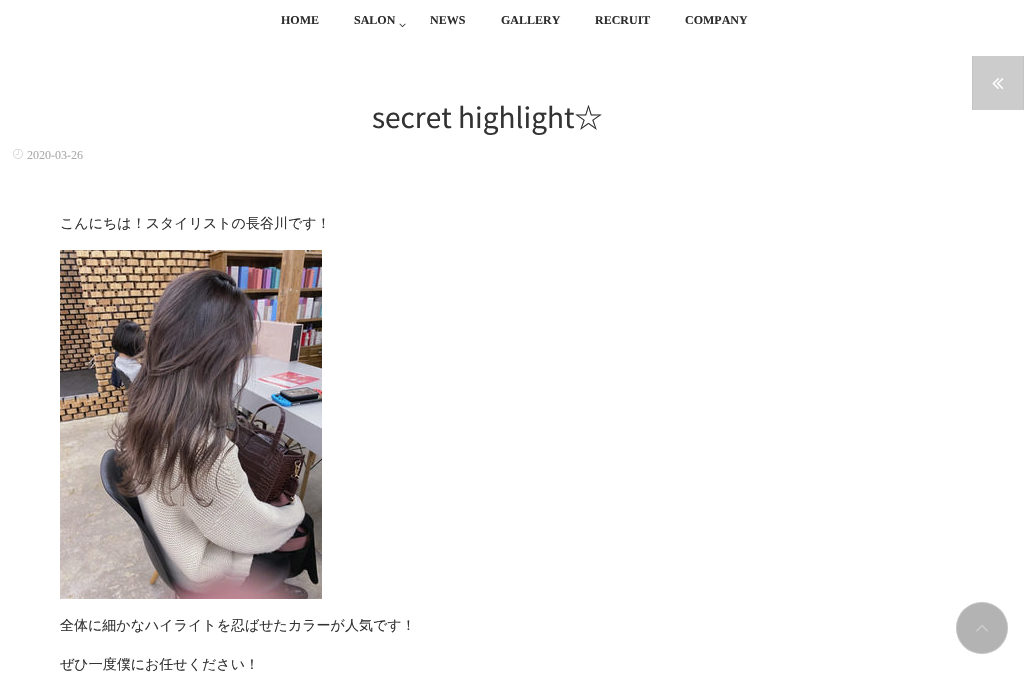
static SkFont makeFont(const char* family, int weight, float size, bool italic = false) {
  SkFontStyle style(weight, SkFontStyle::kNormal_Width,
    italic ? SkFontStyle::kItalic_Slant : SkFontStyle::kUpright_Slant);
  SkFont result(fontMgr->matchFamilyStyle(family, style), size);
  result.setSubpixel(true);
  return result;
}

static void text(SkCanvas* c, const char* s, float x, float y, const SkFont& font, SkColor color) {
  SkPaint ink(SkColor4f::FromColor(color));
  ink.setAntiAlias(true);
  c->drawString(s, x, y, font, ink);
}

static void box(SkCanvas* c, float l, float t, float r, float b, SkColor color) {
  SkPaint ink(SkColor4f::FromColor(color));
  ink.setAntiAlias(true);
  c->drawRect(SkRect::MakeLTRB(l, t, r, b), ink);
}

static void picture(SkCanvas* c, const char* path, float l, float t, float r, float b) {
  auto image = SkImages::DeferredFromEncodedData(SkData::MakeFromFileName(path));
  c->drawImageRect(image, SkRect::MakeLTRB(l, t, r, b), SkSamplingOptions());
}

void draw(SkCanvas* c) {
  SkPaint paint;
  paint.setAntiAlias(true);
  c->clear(0xffffffff);
  SkFont face1 = makeFont("Liberation Serif", 700, 12);
  text(c, "HOME", 281, 24, face1, 0xff2d2d2d);
  text(c, "SALON", 354, 24, face1, 0xff2d2d2d);
  picture(c, "img_01.png", 399, 23, 406, 28);
  text(c, "NEWS", 430, 24, face1, 0xff2d2d2d);
  text(c, "GALLERY", 501, 24, face1, 0xff2d2d2d);
  text(c, "RECRUIT", 595, 24, face1, 0xff2d2d2d);
  text(c, "COMPANY", 685, 24, face1, 0xff2d2d2d);
  box(c, 1023, 56, 1024, 110, 0xffc4c4c4);
  box(c, 972, 56, 973, 110, 0xffc4c4c4);
  box(c, 973, 56, 1023, 110, 0xffcccccc);
  picture(c, "img_02.png", 992, 78, 1004, 89);
  SkFont face2 = makeFont("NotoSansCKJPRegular", 400, 28);
  text(c, "secret highlight☆", 372, 128, face2, 0xff333333);
  picture(c, "img_03.png", 13, 149, 23, 159);
  SkFont face3 = makeFont("Liberation Serif", 400, 12);
  text(c, "2020-03-26", 27, 159, face3, 0xffaaaaaa);
  SkFont face4 = makeFont("WenQuanYi Zen Hei", 500, 14);
  text(c, "こんにちは！スタイリストの長谷川です！", 60, 228, face4, 0xff333333);
  picture(c, "img_04.png", 60, 250, 322, 599);
  text(c, "全体に細かなハイライトを忍ばせたカラーが人気です！", 60, 630, face4, 0xff333333);
  text(c, "ぜひ一度僕にお任せください！", 60, 669, face4, 0xff333333);
  paint.setColor(0xffb3b3b3);
  c->drawCircle(982, 628, 26, paint);
  paint.setStyle(SkPaint::kStroke_Style);
  paint.setStrokeWidth(1);
  paint.setColor(0x33ffffff);
  c->drawCircle(982, 628, 25.5f, paint);
  picture(c, "img_05.png", 976, 624, 988, 632);
}
